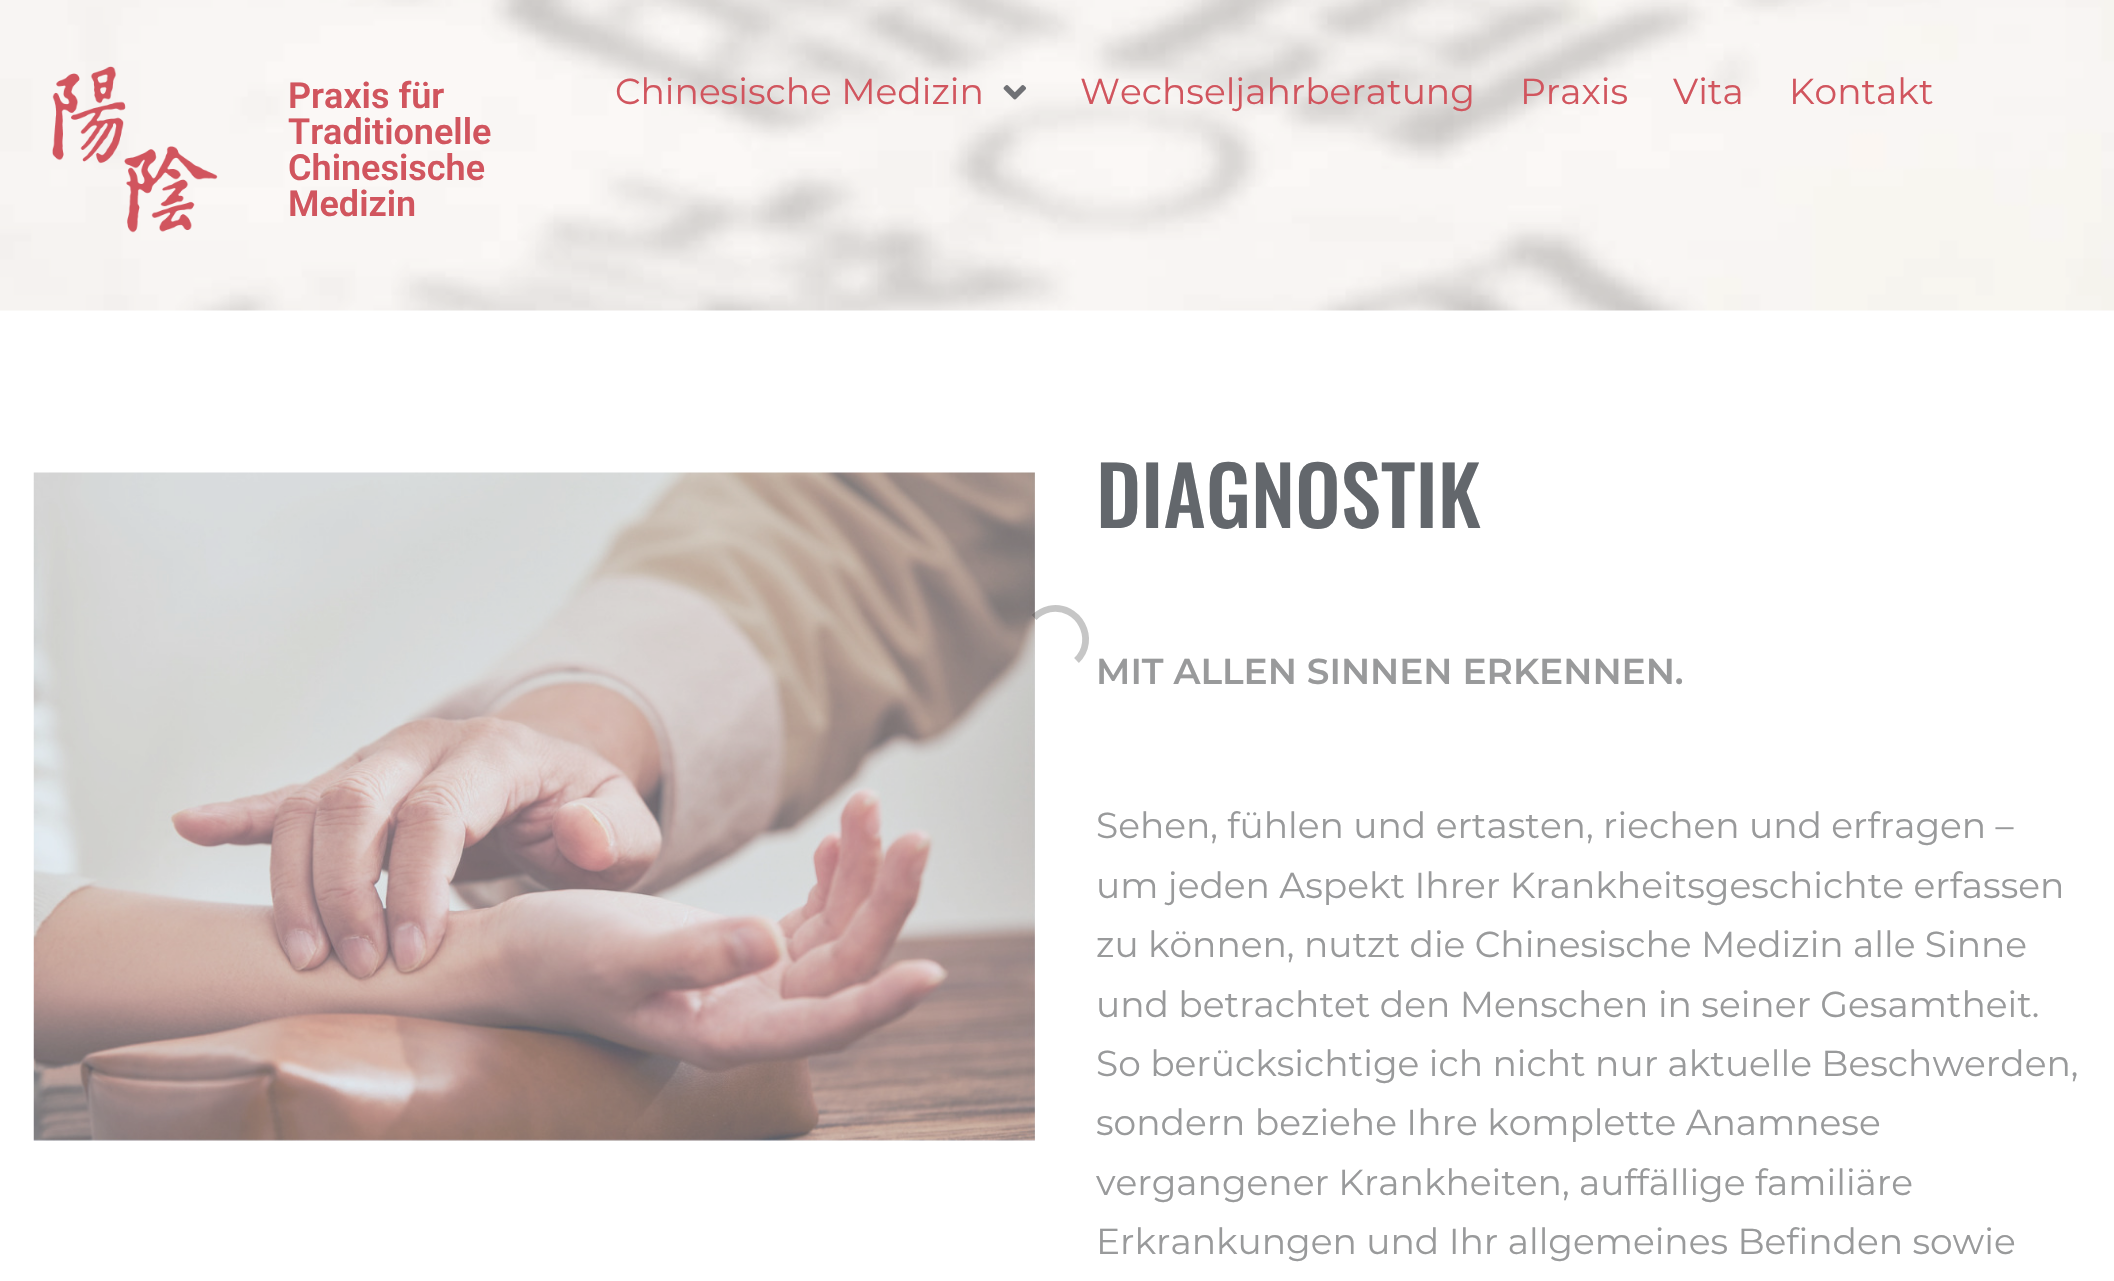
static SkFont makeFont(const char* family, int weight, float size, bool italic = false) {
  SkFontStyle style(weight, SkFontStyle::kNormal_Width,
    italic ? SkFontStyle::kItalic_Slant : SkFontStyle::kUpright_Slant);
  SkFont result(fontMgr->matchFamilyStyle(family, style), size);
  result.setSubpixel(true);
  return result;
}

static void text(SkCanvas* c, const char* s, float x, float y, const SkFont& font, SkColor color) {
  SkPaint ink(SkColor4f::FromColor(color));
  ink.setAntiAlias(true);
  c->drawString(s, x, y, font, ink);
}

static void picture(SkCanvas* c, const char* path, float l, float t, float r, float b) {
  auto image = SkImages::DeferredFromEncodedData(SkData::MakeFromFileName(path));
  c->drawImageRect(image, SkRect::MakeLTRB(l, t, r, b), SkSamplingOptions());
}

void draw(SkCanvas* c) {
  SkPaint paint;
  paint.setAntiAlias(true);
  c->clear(0xffffffff);
  picture(c, "img_01.png", 0, 0, 2114, 311);
  picture(c, "img_02.png", 52, 66, 218, 233);
  SkFont face1 = makeFont("Roboto", 600, 36);
  text(c, "Praxis für", 288, 108, face1, 0xffd1555e);
  text(c, "Traditionelle", 288, 144, face1, 0xffd1555e);
  text(c, "Chinesische", 288, 180, face1, 0xffd1555e);
  text(c, "Medizin", 288, 216, face1, 0xffd1555e);
  SkFont face2 = makeFont("Montserrat", 400, 36);
  text(c, "Chinesische Medizin", 615, 104, face2, 0xffd1555e);
  picture(c, "img_03.png", 1003, 85, 1027, 100);
  text(c, "Wechseljahrberatung", 1080, 104, face2, 0xffd1555e);
  text(c, "Praxis", 1520, 104, face2, 0xffd1555e);
  text(c, "Vita", 1673, 104, face2, 0xffd1555e);
  text(c, "Kontakt", 1789, 104, face2, 0xffd1555e);
  picture(c, "img_04.png", 33, 472, 1035, 1141);
  SkFont face3 = makeFont("Oswald", 500, 81);
  text(c, "DIAGNOSTIK", 1096, 528, face3, 0xff63676c);
  SkFont face4 = makeFont("Montserrat", 600, 36);
  text(c, "MIT ALLEN SINNEN ERKENNEN.", 1096, 684, face4, 0xff999a9b);
  text(c, "Sehen, fühlen und ertasten, riechen und erfragen –", 1096, 838, face2, 0xff999a9b);
  text(c, "um jeden Aspekt Ihrer Krankheitsgeschichte erfassen", 1096, 898, face2, 0xff999a9b);
  text(c, "zu können, nutzt die Chinesische Medizin alle Sinne", 1096, 957, face2, 0xff999a9b);
  text(c, "und betrachtet den Menschen in seiner Gesamtheit.", 1096, 1017, face2, 0xff999a9b);
  text(c, "So berücksichtige ich nicht nur aktuelle Beschwerden,", 1096, 1076, face2, 0xff999a9b);
  text(c, "sondern beziehe Ihre komplette Anamnese", 1096, 1135, face2, 0xff999a9b);
  text(c, "vergangener Krankheiten, auffällige familiäre", 1096, 1195, face2, 0xff999a9b);
  text(c, "Erkrankungen und Ihr allgemeines Befinden sowie", 1096, 1254, face2, 0xff999a9b);
  paint.setStyle(SkPaint::kStroke_Style);
  paint.setStrokeWidth(6.8f);
  paint.setColor(0x452d2d2d);
  c->drawPath(SkPathBuilder().moveTo(1034, 617.5f).cubicTo(1038, 613.5f, 1043.5f, 610.5f, 1049.5f, 609).cubicTo(1078.5f, 603.5f, 1098, 639.5f, 1076.5f, 660.5f).detach(), paint);
}
